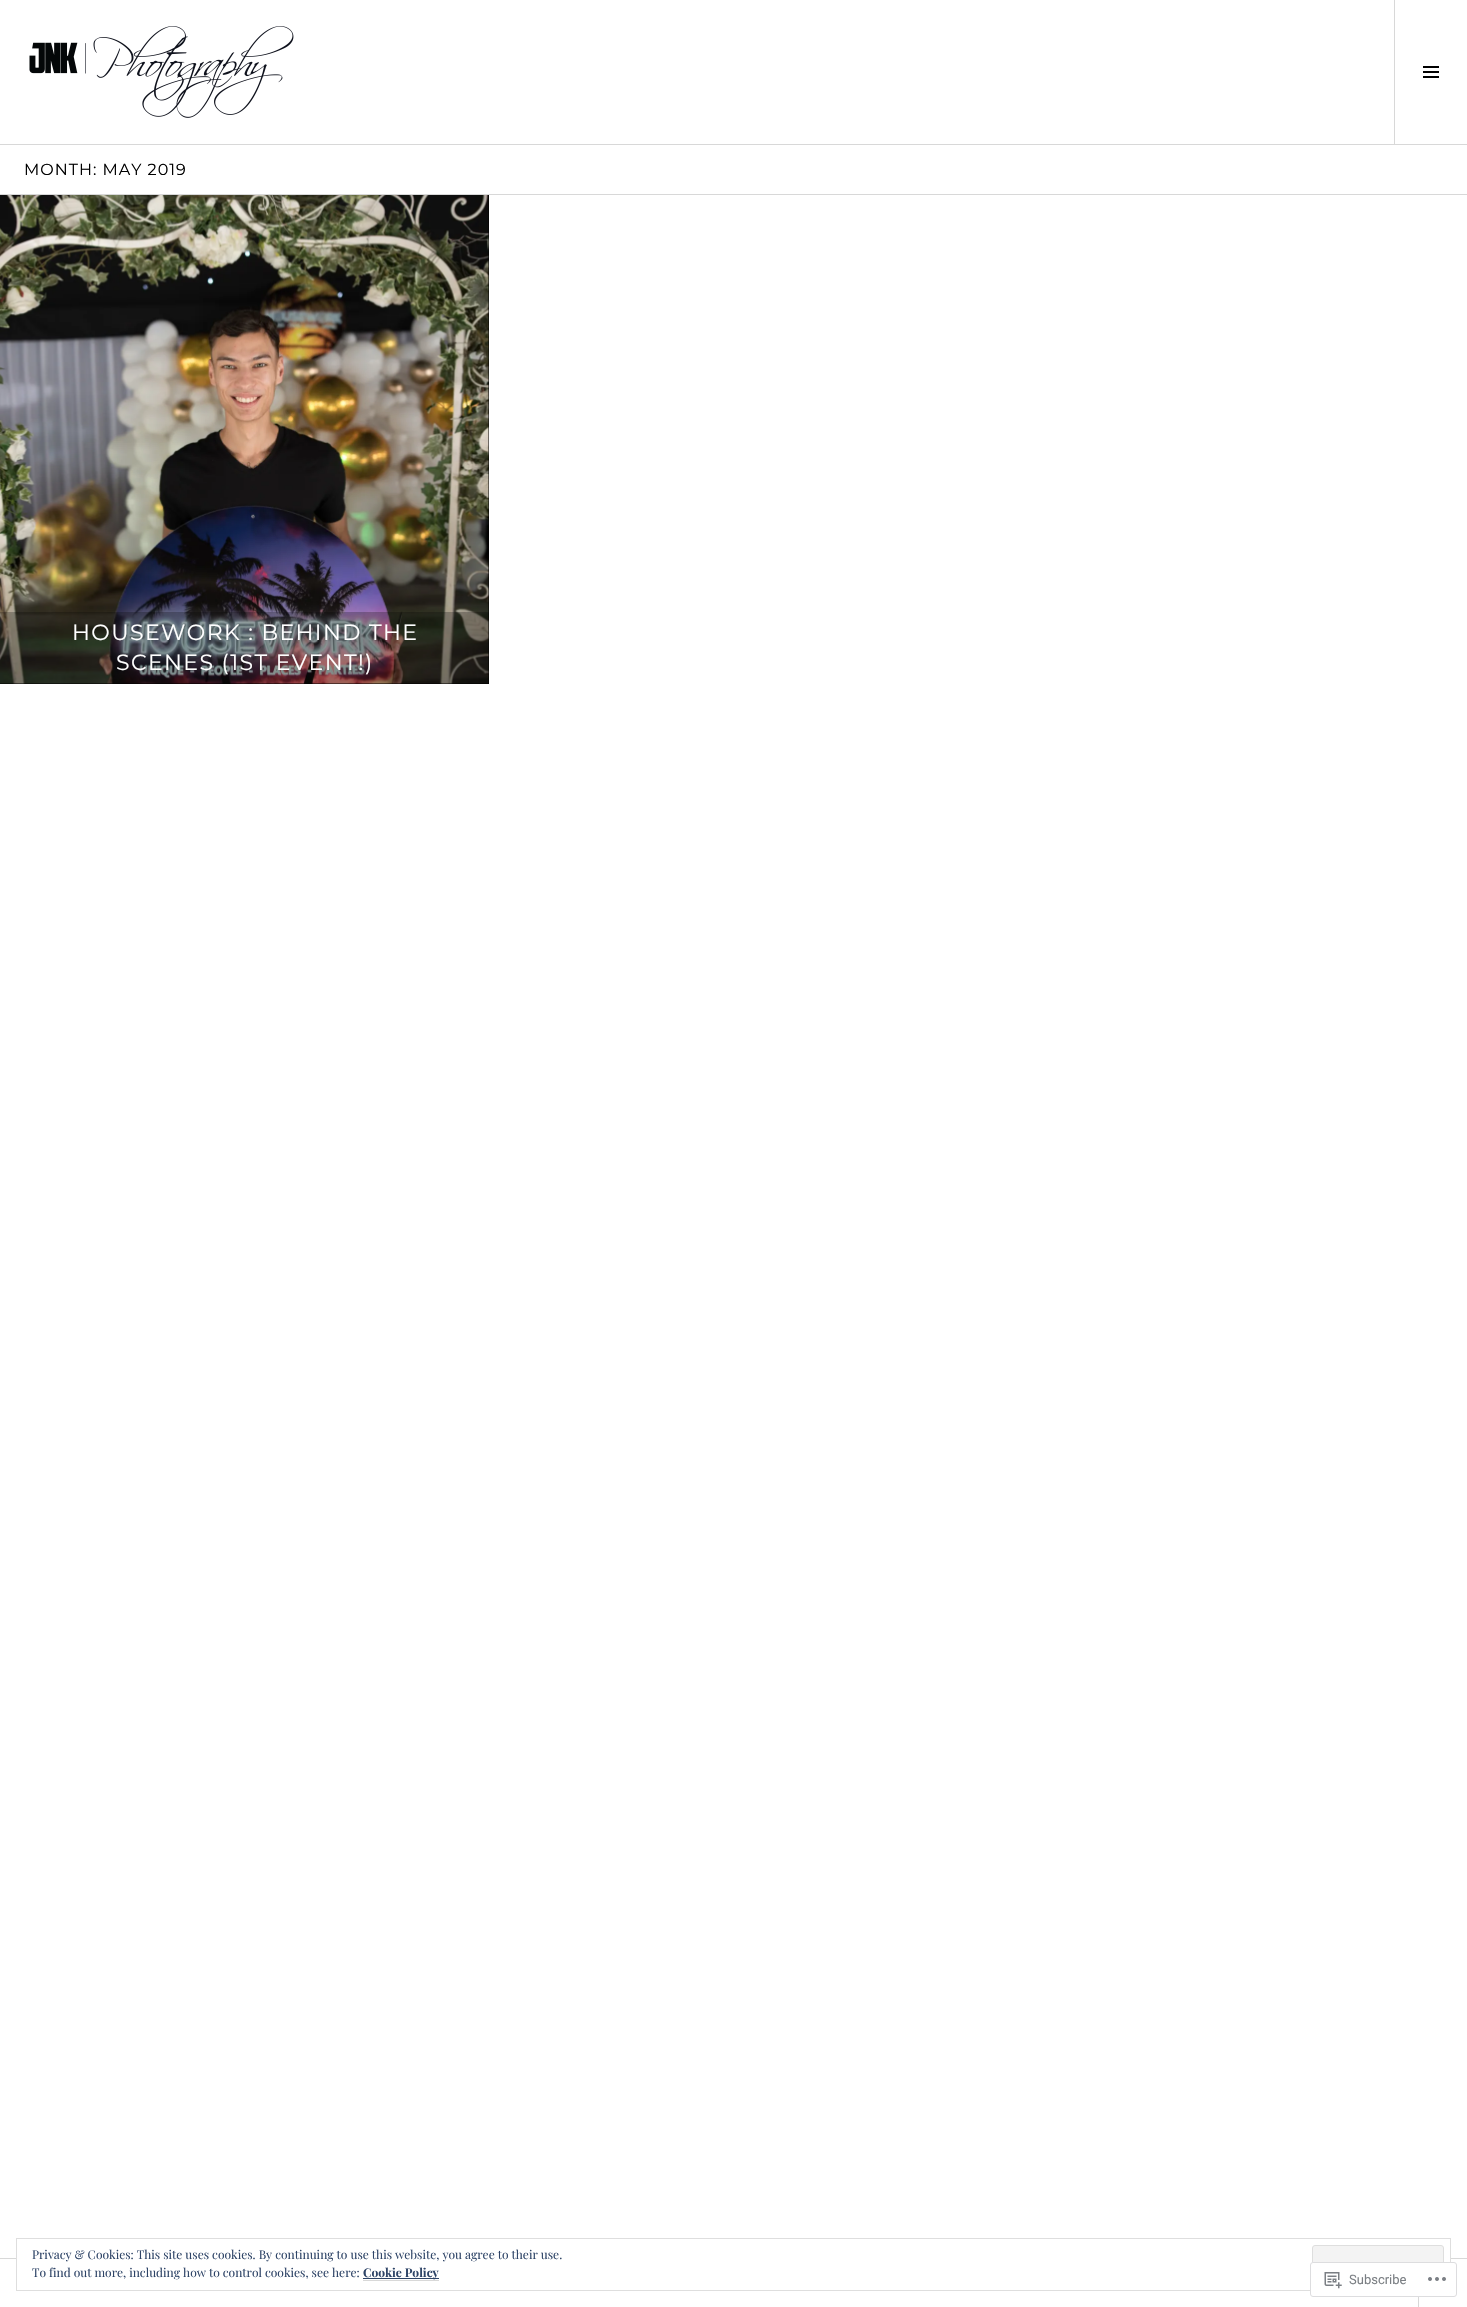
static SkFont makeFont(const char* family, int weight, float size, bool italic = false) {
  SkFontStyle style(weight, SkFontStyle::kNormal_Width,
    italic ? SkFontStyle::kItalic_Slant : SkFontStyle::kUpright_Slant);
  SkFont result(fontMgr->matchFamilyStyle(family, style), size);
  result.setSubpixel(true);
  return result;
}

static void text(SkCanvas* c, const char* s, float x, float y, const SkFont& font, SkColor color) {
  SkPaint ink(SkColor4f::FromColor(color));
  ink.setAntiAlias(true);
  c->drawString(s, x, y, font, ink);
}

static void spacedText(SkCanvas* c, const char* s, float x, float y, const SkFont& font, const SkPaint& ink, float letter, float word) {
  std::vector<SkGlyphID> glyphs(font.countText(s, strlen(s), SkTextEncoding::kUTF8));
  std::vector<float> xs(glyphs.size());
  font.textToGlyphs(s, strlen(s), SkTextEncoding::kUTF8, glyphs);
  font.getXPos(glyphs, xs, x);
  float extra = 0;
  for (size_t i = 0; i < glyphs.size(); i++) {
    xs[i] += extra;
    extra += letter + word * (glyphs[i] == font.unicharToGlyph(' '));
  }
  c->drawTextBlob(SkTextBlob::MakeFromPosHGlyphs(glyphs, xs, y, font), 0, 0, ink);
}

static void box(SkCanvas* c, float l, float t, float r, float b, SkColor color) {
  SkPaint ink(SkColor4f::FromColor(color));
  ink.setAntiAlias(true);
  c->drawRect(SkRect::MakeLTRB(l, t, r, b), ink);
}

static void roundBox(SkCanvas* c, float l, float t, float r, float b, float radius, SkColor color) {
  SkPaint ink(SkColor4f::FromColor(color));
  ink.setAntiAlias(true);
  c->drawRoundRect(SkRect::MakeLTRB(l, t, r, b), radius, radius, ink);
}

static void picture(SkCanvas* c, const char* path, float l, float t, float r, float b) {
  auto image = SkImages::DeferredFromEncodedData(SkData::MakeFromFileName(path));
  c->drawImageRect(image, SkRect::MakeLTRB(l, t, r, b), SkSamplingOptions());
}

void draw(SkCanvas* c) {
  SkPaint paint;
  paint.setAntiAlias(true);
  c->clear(0xffffffff);
  box(c, 0, 144, 1467, 145, 0xffd8d8d8);
  picture(c, "img_01.png", 29, 26, 294, 118);
  box(c, 1394, 0, 1395, 144, 0xffd8d8d8);
  picture(c, "img_02.png", 1423, 66, 1439, 78);
  box(c, 0, 194, 1467, 195, 0xffd8d8d8);
  SkFont face1 = makeFont("Montserrat", 400, 16);
  paint.setColor(0xff000000);
  spacedText(c, "MONTH: MAY 2019", 24, 175, face1, paint, 1, 0);
  box(c, 0, 195, 489, 684, 0xff000000);
  picture(c, "img_03.png", 0, 195, 489, 684);
  box(c, 0, 612, 489, 684, 0x40000000);
  SkFont face2 = makeFont("Montserrat", 400, 22);
  paint.setColor(0xffffffff);
  spacedText(c, "HOUSEWORK : BEHIND THE", 72, 640, face2, paint, 1.4f, 0);
  spacedText(c, "SCENES (1ST EVENT!)", 116, 670, face2, paint, 1.4f, 0);
  box(c, 0, 2258, 1467, 2259, 0xffd8d8d8);
  c->save();
  c->clipRect(SkRect::MakeLTRB(0, 2259, 1467, 2307));
  paint.setStyle(SkPaint::kStroke_Style);
  paint.setStrokeWidth(1);
  paint.setColor(0xffd8d8d8);
  c->drawRect(SkRect::MakeLTRB(1418.5f, 2258.5f, 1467.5f, 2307.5f), paint);
  c->restore();
  box(c, 17, 2258, 1450, 2290, 0xffffffff);
  paint.setColor(0xffdedede);
  c->drawRect(SkRect::MakeLTRB(16.5f, 2238.5f, 1450.5f, 2290.5f), paint);
  SkFont face3 = makeFont("Playfair Display", 400, 12);
  text(c, "Privacy & Cookies: This site uses cookies. By continuing to use this website, you agree to their use.", 32, 2259, face3, 0xff2e4467);
  paint.setStyle(SkPaint::kFill_Style);
  paint.setColor(0xfff3f3f3);
  c->drawRoundRect(SkRect::MakeLTRB(1312.5f, 2245.5f, 1443.5f, 2283.5f), 2.5f, 2.5f, paint);
  paint.setStyle(SkPaint::kStroke_Style);
  paint.setColor(0xffdedede);
  c->drawRoundRect(SkRect::MakeLTRB(1312.5f, 2245.5f, 1443.5f, 2283.5f), 2.5f, 2.5f, paint);
  text(c, "To find out more, including how to control cookies, see here:", 32, 2277, face3, 0xff2e4467);
  box(c, 363, 2278, 439, 2279, 0xff2e4467);
  SkFont face4 = makeFont("Playfair Display", 700, 12);
  text(c, "Cookie Policy", 363, 2277, face4, 0xff2e4467);
  box(c, 363, 2280, 439, 2281, 0xffd8d8d8);
  roundBox(c, 1310, 2262, 1457, 2297, 3, 0xfaffffff);
  paint.setColor(0xfadcdcde);
  c->drawRoundRect(SkRect::MakeLTRB(1310.5f, 2262.5f, 1456.5f, 2296.5f), 2.5f, 2.5f, paint);
  picture(c, "img_04.png", 1324, 2272, 1342, 2289);
  SkFont face5 = makeFont("Roboto", 400, 13);
  text(c, "Subscribe", 1349, 2284, face5, 0xff7b7f84);
  picture(c, "img_05.png", 1428, 2277, 1446, 2281);
}
